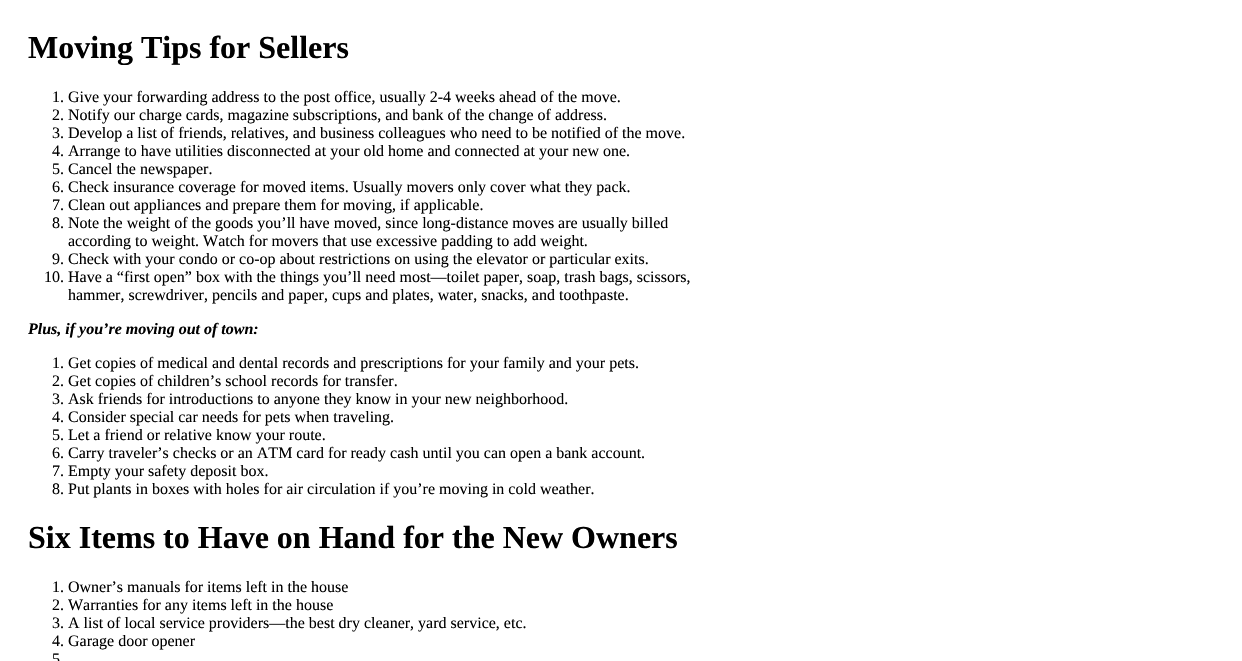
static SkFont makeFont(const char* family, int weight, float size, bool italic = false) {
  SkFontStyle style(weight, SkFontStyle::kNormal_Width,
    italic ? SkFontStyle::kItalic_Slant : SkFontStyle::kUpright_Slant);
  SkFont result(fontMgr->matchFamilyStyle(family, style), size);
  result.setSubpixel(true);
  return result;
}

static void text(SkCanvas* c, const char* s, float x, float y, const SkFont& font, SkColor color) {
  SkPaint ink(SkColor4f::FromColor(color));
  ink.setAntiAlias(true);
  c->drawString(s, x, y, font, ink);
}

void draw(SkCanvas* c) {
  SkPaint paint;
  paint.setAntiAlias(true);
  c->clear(0xffffffff);
  SkFont face1 = makeFont("Liberation Serif", 700, 32);
  text(c, "Moving Tips for Sellers", 28, 58, face1, 0xff000000);
  SkFont face2 = makeFont("Liberation Serif", 400, 16);
  text(c, "1. Give your forwarding address to the post office, usually 2-4 weeks ahead of the move.", 52, 102, face2, 0xff000000);
  text(c, "2. Notify our charge cards, magazine subscriptions, and bank of the change of address.", 52, 120, face2, 0xff000000);
  text(c, "3. Develop a list of friends, relatives, and business colleagues who need to be notified of the move.", 52, 138, face2, 0xff000000);
  text(c, "4. Arrange to have utilities disconnected at your old home and connected at your new one.", 52, 156, face2, 0xff000000);
  text(c, "5. Cancel the newspaper.", 52, 174, face2, 0xff000000);
  text(c, "6. Check insurance coverage for moved items. Usually movers only cover what they pack.", 52, 192, face2, 0xff000000);
  text(c, "7. Clean out appliances and prepare them for moving, if applicable.", 52, 210, face2, 0xff000000);
  text(c, "8. Note the weight of the goods you’ll have moved, since long-distance moves are usually billed", 52, 228, face2, 0xff000000);
  text(c, "according to weight. Watch for movers that use excessive padding to add weight.", 68, 246, face2, 0xff000000);
  text(c, "9. Check with your condo or co-op about restrictions on using the elevator or particular exits.", 52, 264, face2, 0xff000000);
  text(c, "10. Have a “first open” box with the things you’ll need most—toilet paper, soap, trash bags, scissors,", 44, 282, face2, 0xff000000);
  text(c, "hammer, screwdriver, pencils and paper, cups and plates, water, snacks, and toothpaste.", 68, 300, face2, 0xff000000);
  SkFont face3 = makeFont("Liberation Serif", 700, 16, true);
  text(c, "Plus, if you’re moving out of town:", 28, 334, face3, 0xff000000);
  text(c, "1. Get copies of medical and dental records and prescriptions for your family and your pets.", 52, 368, face2, 0xff000000);
  text(c, "2. Get copies of children’s school records for transfer.", 52, 386, face2, 0xff000000);
  text(c, "3. Ask friends for introductions to anyone they know in your new neighborhood.", 52, 404, face2, 0xff000000);
  text(c, "4. Consider special car needs for pets when traveling.", 52, 422, face2, 0xff000000);
  text(c, "5. Let a friend or relative know your route.", 52, 440, face2, 0xff000000);
  text(c, "6. Carry traveler’s checks or an ATM card for ready cash until you can open a bank account.", 52, 458, face2, 0xff000000);
  text(c, "7. Empty your safety deposit box.", 52, 476, face2, 0xff000000);
  text(c, "8. Put plants in boxes with holes for air circulation if you’re moving in cold weather.", 52, 494, face2, 0xff000000);
  text(c, "Six Items to Have on Hand for the New Owners", 28, 548, face1, 0xff000000);
  text(c, "1. Owner’s manuals for items left in the house", 52, 592, face2, 0xff000000);
  text(c, "2. Warranties for any items left in the house", 52, 610, face2, 0xff000000);
  text(c, "3. A list of local service providers—the best dry cleaner, yard service, etc.", 52, 628, face2, 0xff000000);
  text(c, "4. Garage door opener", 52, 646, face2, 0xff000000);
  text(c, "5", 52, 664, face2, 0xff000000);
}
